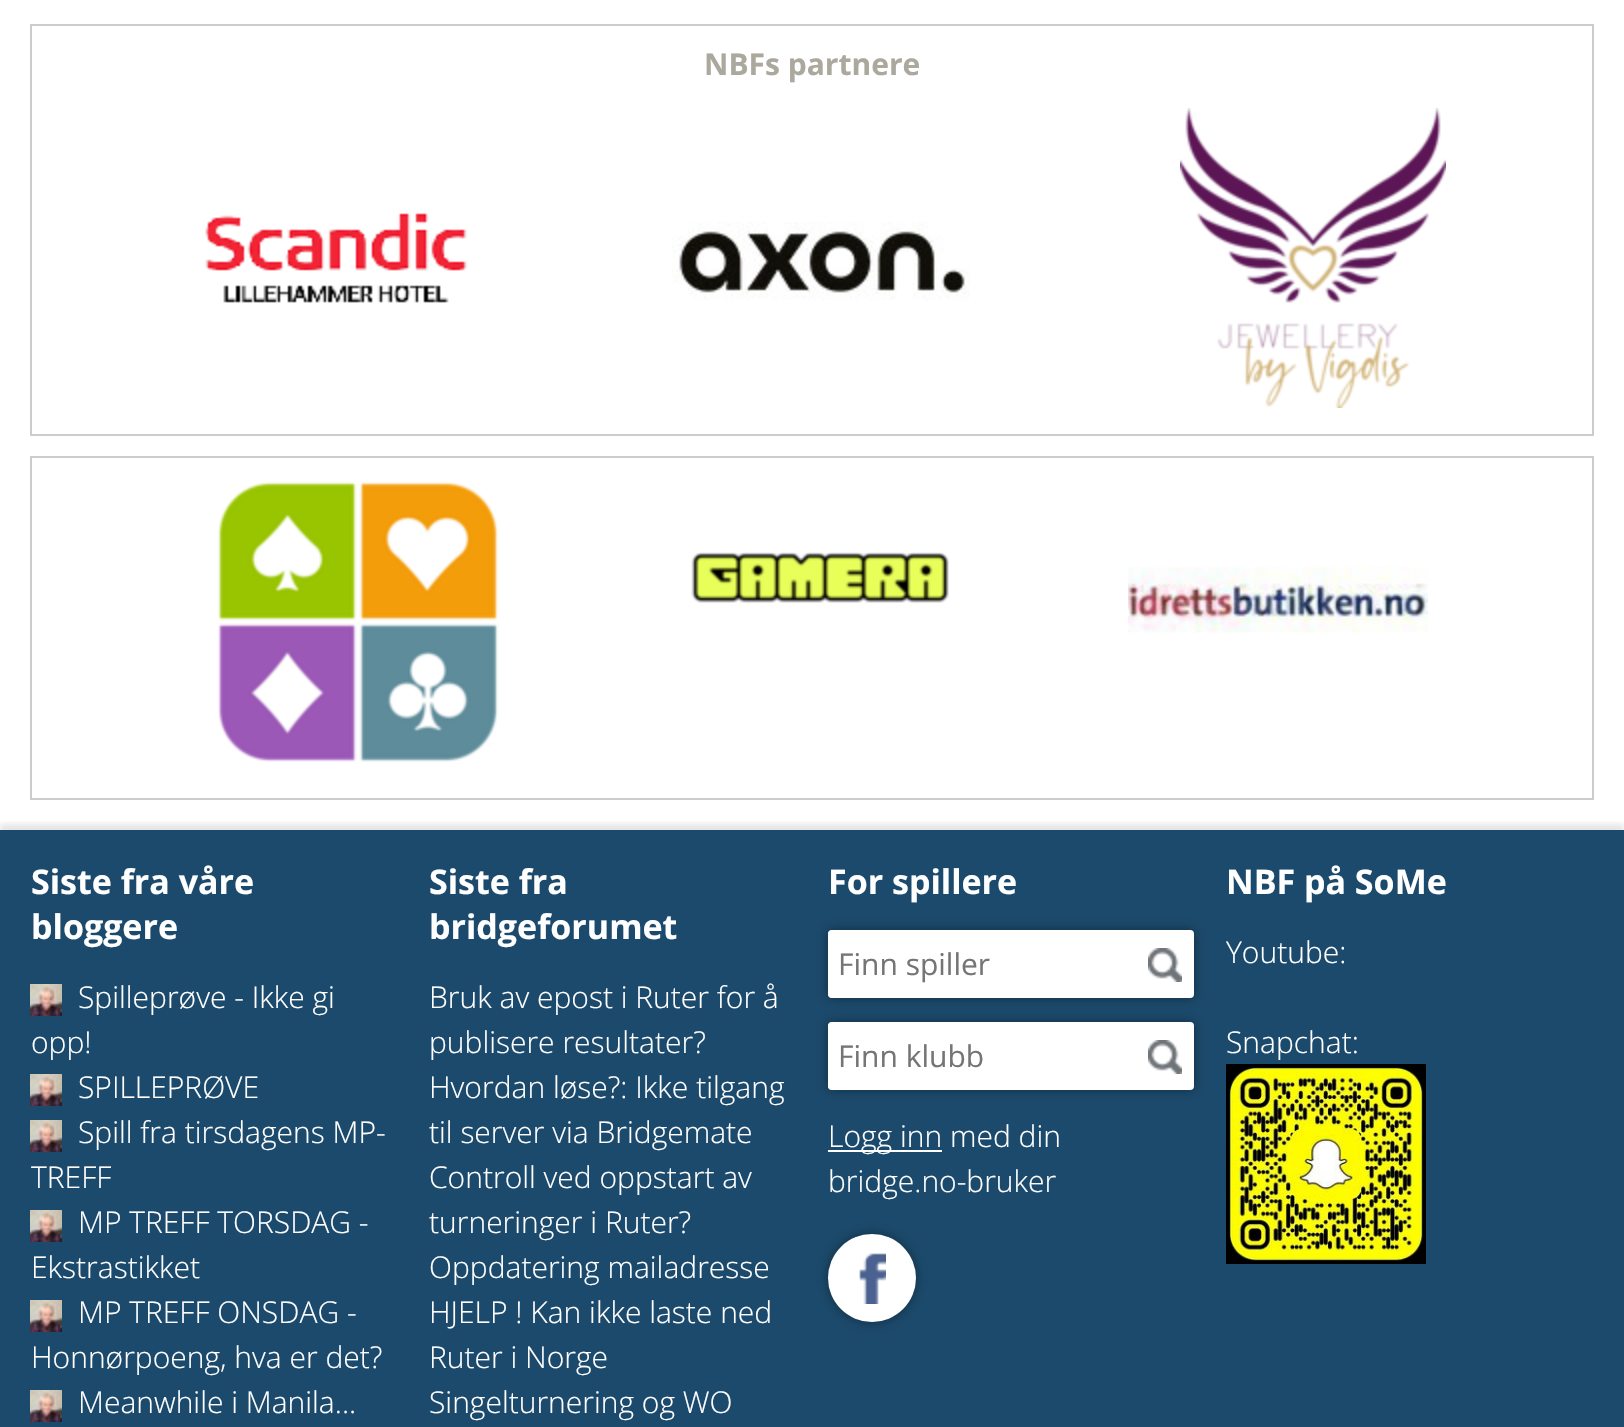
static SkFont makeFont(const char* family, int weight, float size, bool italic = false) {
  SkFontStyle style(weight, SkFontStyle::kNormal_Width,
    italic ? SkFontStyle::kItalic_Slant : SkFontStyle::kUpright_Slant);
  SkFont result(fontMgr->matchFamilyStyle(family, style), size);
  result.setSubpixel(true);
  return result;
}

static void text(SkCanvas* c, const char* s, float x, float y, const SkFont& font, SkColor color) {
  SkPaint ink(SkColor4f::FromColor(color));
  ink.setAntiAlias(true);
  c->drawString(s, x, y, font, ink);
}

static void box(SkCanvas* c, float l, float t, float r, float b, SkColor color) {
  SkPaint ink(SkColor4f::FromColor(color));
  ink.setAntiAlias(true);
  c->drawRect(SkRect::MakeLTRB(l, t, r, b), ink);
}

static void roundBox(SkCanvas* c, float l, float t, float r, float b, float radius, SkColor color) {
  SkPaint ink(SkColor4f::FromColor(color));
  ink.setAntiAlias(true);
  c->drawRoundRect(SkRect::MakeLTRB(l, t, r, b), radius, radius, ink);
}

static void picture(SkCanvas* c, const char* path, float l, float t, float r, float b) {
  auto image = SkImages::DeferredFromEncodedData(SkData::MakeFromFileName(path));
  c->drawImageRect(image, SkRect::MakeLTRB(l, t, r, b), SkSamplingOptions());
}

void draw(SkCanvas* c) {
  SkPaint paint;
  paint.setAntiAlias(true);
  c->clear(0xff1c4a6c);
  box(c, 0, 0, 1624, 830, 0xffffffff);
  paint.setStyle(SkPaint::kStroke_Style);
  paint.setStrokeWidth(2);
  paint.setColor(0xffcccccc);
  c->drawRect(SkRect::MakeLTRB(31, 25, 1593, 435), paint);
  SkFont face1 = makeFont("Open Sans", 700, 30);
  text(c, "NBFs partnere", 704, 75, face1, 0xffaba89d);
  picture(c, "img_01.png", 205, 213, 467, 303);
  picture(c, "img_02.png", 672, 222, 970, 300);
  picture(c, "img_03.png", 1180, 108, 1446, 408);
  c->drawRect(SkRect::MakeLTRB(31, 457, 1593, 799), paint);
  picture(c, "img_04.png", 217, 481, 499, 762);
  picture(c, "img_05.png", 691, 552, 949, 603);
  picture(c, "img_06.png", 1128, 567, 1428, 633);
  c->save();
  c->clipRect(SkRect::MakeLTRB(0, 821, 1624, 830));
  paint.setStyle(SkPaint::kFill_Style);
  paint.setColor(0x1a000000);
  paint.setMaskFilter(SkMaskFilter::MakeBlur(kNormal_SkBlurStyle, 3));
  c->drawRect(SkRect::MakeLTRB(0, 824, 1624, 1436), paint);
  paint.setMaskFilter(nullptr);
  c->restore();
  SkFont face2 = makeFont("Open Sans", 700, 34);
  text(c, "Siste fra våre", 31, 894, face2, 0xffffffff);
  text(c, "bloggere", 31, 939, face2, 0xffffffff);
  picture(c, "img_07.png", 30, 984, 62, 1016);
  SkFont face3 = makeFont("Open Sans", 300, 30);
  text(c, "Spilleprøve - Ikke gi", 78, 1008, face3, 0xffffffff);
  text(c, "opp!", 31, 1053, face3, 0xffffffff);
  picture(c, "img_07.png", 30, 1074, 62, 1106);
  text(c, "SPILLEPRØVE", 78, 1098, face3, 0xffffffff);
  picture(c, "img_07.png", 30, 1120, 62, 1152);
  text(c, "Spill fra tirsdagens MP-", 78, 1143, face3, 0xffffffff);
  text(c, "TREFF", 31, 1188, face3, 0xffffffff);
  picture(c, "img_07.png", 30, 1210, 62, 1242);
  text(c, "MP TREFF TORSDAG -", 78, 1233, face3, 0xffffffff);
  text(c, "Ekstrastikket", 31, 1278, face3, 0xffffffff);
  picture(c, "img_07.png", 30, 1300, 62, 1332);
  text(c, "MP TREFF ONSDAG -", 78, 1323, face3, 0xffffffff);
  text(c, "Honnørpoeng, hva er det?", 31, 1368, face3, 0xffffffff);
  picture(c, "img_07.png", 30, 1390, 62, 1422);
  text(c, "Meanwhile i Manila...", 78, 1413, face3, 0xffffffff);
  text(c, "Siste fra", 429, 894, face2, 0xffffffff);
  text(c, "bridgeforumet", 429, 939, face2, 0xffffffff);
  text(c, "Bruk av epost i Ruter for å", 429, 1008, face3, 0xffffffff);
  text(c, "publisere resultater?", 429, 1053, face3, 0xffffffff);
  text(c, "Hvordan løse?: Ikke tilgang", 429, 1098, face3, 0xffffffff);
  text(c, "til server via Bridgemate", 429, 1143, face3, 0xffffffff);
  text(c, "Controll ved oppstart av", 429, 1188, face3, 0xffffffff);
  text(c, "turneringer i Ruter?", 429, 1233, face3, 0xffffffff);
  text(c, "Oppdatering mailadresse", 429, 1278, face3, 0xffffffff);
  text(c, "HJELP ! Kan ikke laste ned", 429, 1323, face3, 0xffffffff);
  text(c, "Ruter i Norge", 429, 1368, face3, 0xffffffff);
  text(c, "Singelturnering og WO", 429, 1413, face3, 0xffffffff);
  text(c, "For spillere", 828, 894, face2, 0xffffffff);
  paint.setColor(0x66000000);
  paint.setMaskFilter(SkMaskFilter::MakeBlur(kNormal_SkBlurStyle, 6));
  c->drawRoundRect(SkRect::MakeLTRB(828, 930, 1194, 998), 4, 4, paint);
  paint.setMaskFilter(nullptr);
  roundBox(c, 828, 930, 1194, 998, 4, 0xffffffff);
  paint.setColor(0xffffffff);
  c->drawPath(SkPathBuilder().moveTo(832, 930).lineTo(1140, 930).lineTo(1140, 998).lineTo(832, 998).cubicTo(830, 998, 828, 996, 828, 994).lineTo(828, 934).cubicTo(828, 932, 830, 930, 832, 930).close().detach(), paint);
  SkFont face4 = makeFont("Open Sans", 400, 30);
  text(c, "Finn spiller", 838, 975, face4, 0xff757575);
  picture(c, "img_08.png", 1148, 948, 1182, 982);
  paint.setColor(0x66000000);
  paint.setMaskFilter(SkMaskFilter::MakeBlur(kNormal_SkBlurStyle, 6));
  c->drawRoundRect(SkRect::MakeLTRB(828, 1022, 1194, 1090), 4, 4, paint);
  paint.setMaskFilter(nullptr);
  roundBox(c, 828, 1022, 1194, 1090, 4, 0xffffffff);
  paint.setColor(0xffffffff);
  c->drawPath(SkPathBuilder().moveTo(832, 1022).lineTo(1140, 1022).lineTo(1140, 1090).lineTo(832, 1090).cubicTo(830, 1090, 828, 1088, 828, 1086).lineTo(828, 1026).cubicTo(828, 1024, 830, 1022, 832, 1022).close().detach(), paint);
  text(c, "Finn klubb", 838, 1067, face4, 0xff757575);
  picture(c, "img_08.png", 1148, 1040, 1182, 1074);
  box(c, 828, 1150, 942, 1152, 0xffffffff);
  text(c, "Logg inn med din", 828, 1147, face3, 0xffffffff);
  text(c, "bridge.no-bruker", 828, 1192, face3, 0xffffffff);
  paint.setColor(0x66000000);
  paint.setMaskFilter(SkMaskFilter::MakeBlur(kNormal_SkBlurStyle, 6));
  c->drawRoundRect(SkRect::MakeLTRB(828, 1234, 916, 1322), 44, 44, paint);
  paint.setMaskFilter(nullptr);
  paint.setColor(0xffffffff);
  c->drawCircle(872, 1278, 44, paint);
  picture(c, "img_09.png", 859, 1253, 886, 1304);
  text(c, "NBF på SoMe", 1226, 894, face2, 0xffffffff);
  text(c, "Youtube:", 1226, 963, face3, 0xffffffff);
  text(c, "Snapchat:", 1226, 1053, face3, 0xffffffff);
  picture(c, "img_10.png", 1226, 1064, 1426, 1264);
}
